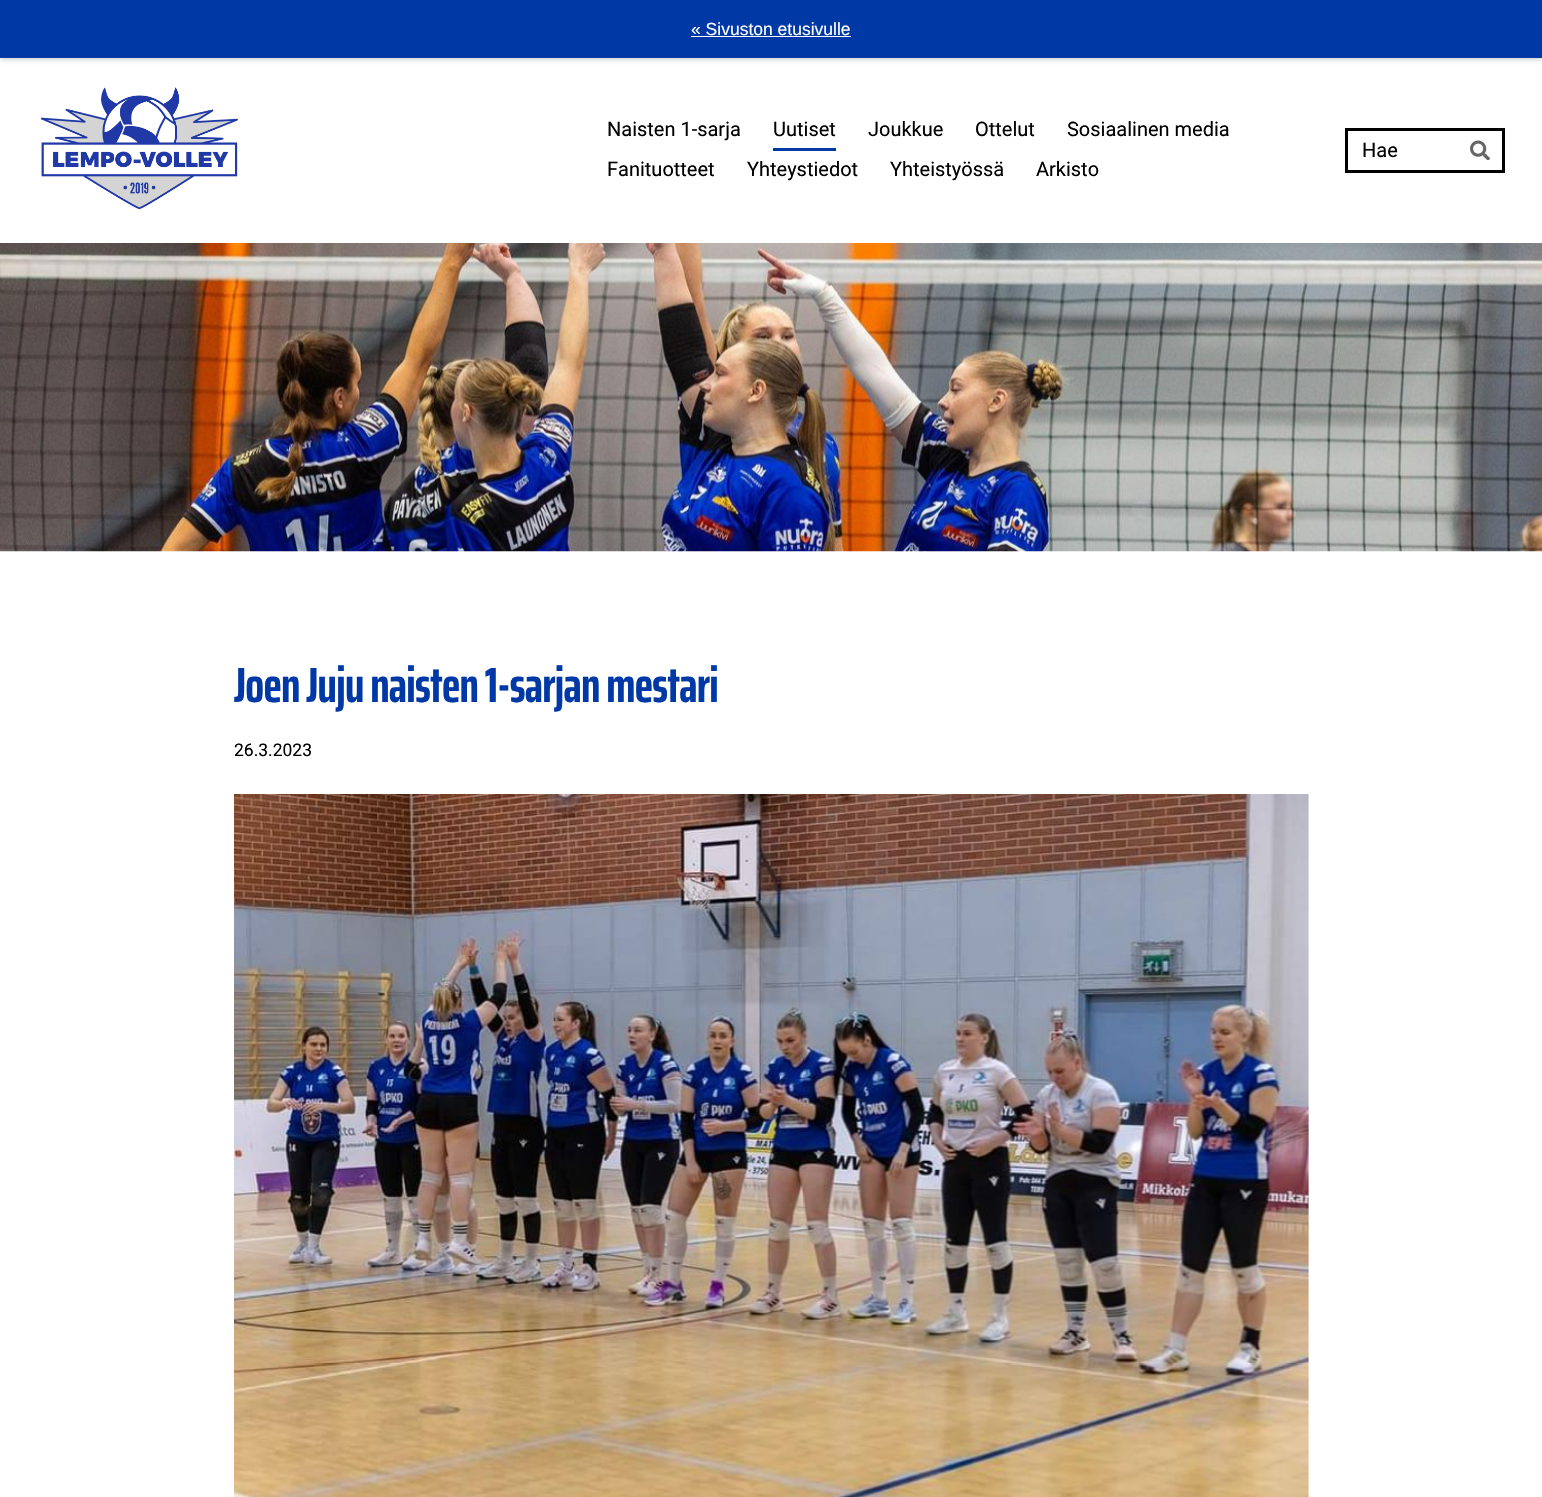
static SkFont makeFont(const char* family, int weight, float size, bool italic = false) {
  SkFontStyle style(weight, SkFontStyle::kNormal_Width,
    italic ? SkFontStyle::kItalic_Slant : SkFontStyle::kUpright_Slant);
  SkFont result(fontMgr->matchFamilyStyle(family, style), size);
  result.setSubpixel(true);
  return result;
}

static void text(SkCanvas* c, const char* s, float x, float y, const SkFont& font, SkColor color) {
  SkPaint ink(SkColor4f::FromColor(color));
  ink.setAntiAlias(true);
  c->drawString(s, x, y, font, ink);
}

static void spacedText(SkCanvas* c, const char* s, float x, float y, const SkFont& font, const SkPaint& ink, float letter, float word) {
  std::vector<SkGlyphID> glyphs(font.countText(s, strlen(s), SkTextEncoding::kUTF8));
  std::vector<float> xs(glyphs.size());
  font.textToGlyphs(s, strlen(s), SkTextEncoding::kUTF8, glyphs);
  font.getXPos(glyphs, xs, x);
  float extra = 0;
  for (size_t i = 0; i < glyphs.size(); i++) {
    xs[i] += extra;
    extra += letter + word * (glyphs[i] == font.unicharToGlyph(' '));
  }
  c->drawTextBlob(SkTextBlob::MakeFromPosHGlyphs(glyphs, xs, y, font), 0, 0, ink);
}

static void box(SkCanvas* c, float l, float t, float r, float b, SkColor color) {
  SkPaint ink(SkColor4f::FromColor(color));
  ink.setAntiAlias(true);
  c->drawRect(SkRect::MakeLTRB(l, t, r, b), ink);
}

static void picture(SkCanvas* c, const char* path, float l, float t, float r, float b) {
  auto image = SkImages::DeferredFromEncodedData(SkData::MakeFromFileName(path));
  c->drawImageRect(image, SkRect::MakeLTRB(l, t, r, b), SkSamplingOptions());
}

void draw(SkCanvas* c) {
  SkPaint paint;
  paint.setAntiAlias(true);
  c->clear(0xffffffff);
  paint.setColor(0x4d3b4a4a);
  paint.setMaskFilter(SkMaskFilter::MakeBlur(kNormal_SkBlurStyle, 3));
  c->drawRect(SkRect::MakeLTRB(0, 1, 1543, 59), paint);
  paint.setMaskFilter(nullptr);
  box(c, 0, 0, 1542, 58, 0xff0039a6);
  SkFont face1 = makeFont("Liberation Sans", 400, 17.5f);
  text(c, "« Sivuston etusivulle", 691, 35, face1, 0xffffffff);
  box(c, 691, 36, 851, 37, 0xffffffff);
  picture(c, "img_01.png", 0, 243, 1542, 552);
  picture(c, "img_02.png", 40, 87, 238, 210);
  SkFont face2 = makeFont("Roboto", 400, 20);
  text(c, "Naisten 1-sarja", 607, 136, face2, 0xff000000);
  text(c, "Uutiset", 773, 136, face2, 0xff000000);
  box(c, 773, 148, 836, 151, 0xff0039a6);
  text(c, "Joukkue", 868, 136, face2, 0xff000000);
  text(c, "Ottelut", 975, 136, face2, 0xff000000);
  text(c, "Sosiaalinen media", 1067, 136, face2, 0xff000000);
  text(c, "Fanituotteet", 607, 176, face2, 0xff000000);
  text(c, "Yhteystiedot", 747, 176, face2, 0xff000000);
  text(c, "Yhteistyössä", 890, 176, face2, 0xff000000);
  text(c, "Arkisto", 1036, 176, face2, 0xff000000);
  paint.setStyle(SkPaint::kStroke_Style);
  paint.setStrokeWidth(3);
  paint.setColor(0xff000000);
  c->drawRect(SkRect::MakeLTRB(1346.5f, 129.5f, 1503.5f, 171.5f), paint);
  text(c, "Hae", 1362, 157, face2, 0xff000000);
  picture(c, "img_03.png", 1470, 140, 1490, 160);
  SkFont face3 = makeFont("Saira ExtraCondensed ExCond", 700, 49.4f);
  paint.setStyle(SkPaint::kFill_Style);
  paint.setColor(0xff0039a6);
  spacedText(c, "Joen Juju naisten 1-sarjan mestari", 234, 702, face3, paint, -0.75f, 0);
  SkFont face4 = makeFont("Roboto", 400, 17.5f);
  text(c, "26.3.2023", 234, 756, face4, 0xff000000);
  picture(c, "img_04.png", 234, 794, 1309, 1497);
}
